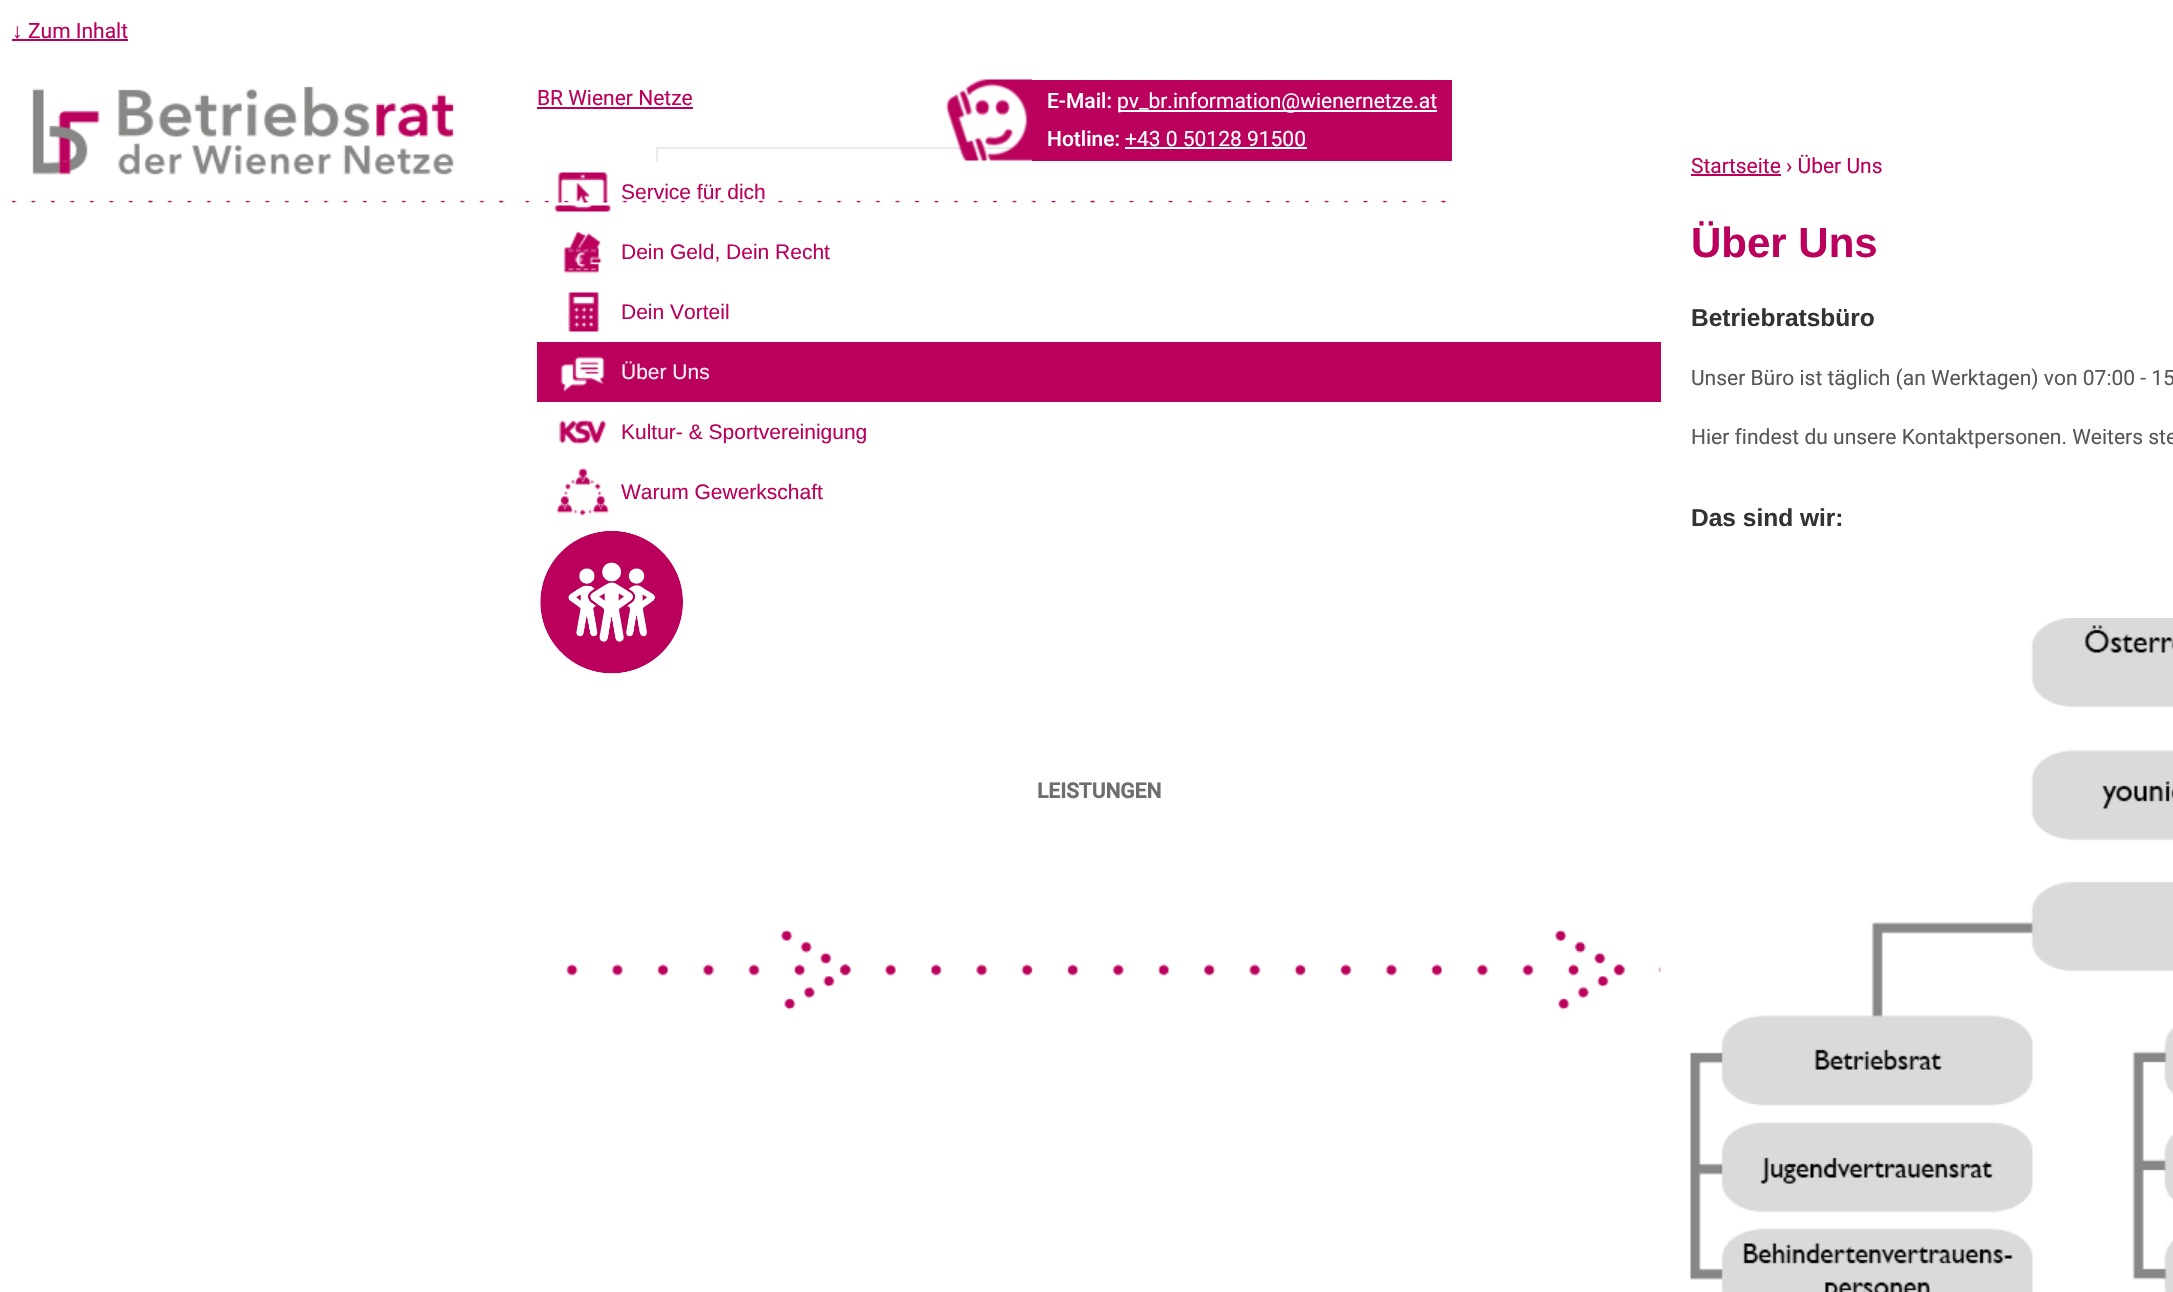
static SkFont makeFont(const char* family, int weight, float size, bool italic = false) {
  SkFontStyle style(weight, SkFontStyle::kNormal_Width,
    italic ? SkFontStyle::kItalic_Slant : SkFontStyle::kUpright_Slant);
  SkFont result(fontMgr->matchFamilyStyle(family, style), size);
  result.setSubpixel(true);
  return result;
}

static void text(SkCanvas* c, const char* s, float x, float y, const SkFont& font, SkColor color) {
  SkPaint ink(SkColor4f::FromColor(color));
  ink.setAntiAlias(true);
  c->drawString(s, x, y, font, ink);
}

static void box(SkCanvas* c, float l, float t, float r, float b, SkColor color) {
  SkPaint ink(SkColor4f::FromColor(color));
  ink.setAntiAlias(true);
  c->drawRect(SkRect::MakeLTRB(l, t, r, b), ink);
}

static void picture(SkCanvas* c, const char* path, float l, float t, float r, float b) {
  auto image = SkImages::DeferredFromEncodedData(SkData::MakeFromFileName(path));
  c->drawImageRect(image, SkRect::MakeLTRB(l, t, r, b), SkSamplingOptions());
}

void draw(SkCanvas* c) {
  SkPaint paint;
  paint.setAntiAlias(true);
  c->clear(0xffffffff);
  SkFont face1 = makeFont("Liberation Sans", 400, 21);
  text(c, "↓", 12, 38, face1, 0xffba005c);
  box(c, 12, 39, 128, 41, 0xffba005c);
  SkFont face2 = makeFont("Roboto", 400, 21);
  text(c, "Zum Inhalt", 28, 38, face2, 0xffba005c);
  text(c, "BR Wiener Netze", 537, 105, face2, 0xffba005c);
  box(c, 537, 107, 693, 109, 0xffba005c);
  picture(c, "img_01.png", 32, 86, 454, 175);
  paint.setStyle(SkPaint::kStroke_Style);
  paint.setStrokeWidth(2);
  paint.setColor(0xffeaeaea);
  c->drawRect(SkRect::MakeLTRB(657, 148, 1451, 191), paint);
  box(c, 1032, 80, 1452, 161, 0xffba005c);
  picture(c, "img_02.png", 946, 79, 1032, 161);
  SkFont face3 = makeFont("Roboto", 500, 21);
  text(c, "E-Mail:", 1047, 108, face3, 0xffffffff);
  box(c, 1118, 110, 1437, 112, 0xffffffff);
  text(c, "pv_br.information@wienernetze.at", 1117, 108, face2, 0xffffffff);
  text(c, "Hotline:", 1047, 146, face3, 0xffffffff);
  text(c, "+43 0 50128 91500", 1125, 146, face2, 0xffffffff);
  box(c, 1125, 147, 1307, 149, 0xffffffff);
  picture(c, "img_04.png", 554, 172, 611, 212);
  box(c, 656, 162, 1452, 192, 0xffffffff);
  text(c, "Service für dich", 621, 199, face1, 0xffba005c);
  picture(c, "img_03.png", 12, 198, 1447, 203);
  picture(c, "img_05.png", 563, 231, 602, 274);
  text(c, "Dein Geld, Dein Recht", 621, 259, face1, 0xffba005c);
  picture(c, "img_06.png", 568, 292, 599, 332);
  text(c, "Dein Vorteil", 621, 319, face1, 0xffba005c);
  box(c, 537, 342, 1661, 402, 0xffba005c);
  picture(c, "img_07.png", 560, 356, 605, 392);
  text(c, "Über Uns", 621, 379, face1, 0xfff1f1f1);
  picture(c, "img_08.png", 559, 419, 607, 445);
  text(c, "Kultur- & Sportvereinigung", 621, 439, face1, 0xffba005c);
  picture(c, "img_09.png", 556, 467, 610, 517);
  text(c, "Warum Gewerkschaft", 621, 499, face1, 0xffba005c);
  picture(c, "img_10.png", 540, 530, 683, 674);
  SkFont face4 = makeFont("Roboto", 700, 21);
  text(c, "LEISTUNGEN", 1037, 798, face4, 0xff6e6e6e);
  picture(c, "img_11.png", 566, 929, 1661, 1010);
  text(c, "Startseite › Über Uns", 1691, 173, face2, 0xffba005c);
  box(c, 1691, 174, 1781, 176, 0xffba005c);
  SkFont face5 = makeFont("Liberation Sans", 700, 42);
  text(c, "Über Uns", 1691, 257, face5, 0xffba005c);
  SkFont face6 = makeFont("Liberation Sans", 700, 24.5f);
  text(c, "Betriebratsbüro", 1691, 326, face6, 0xff333333);
  text(c, "Unser Büro ist täglich (an Werktagen) von 07:00 - 15", 1691, 385, face2, 0xff575757);
  text(c, "Hier findest du unsere Kontaktpersonen. Weiters ste", 1691, 444, face2, 0xff575757);
  text(c, "Das sind wir:", 1691, 526, face6, 0xff333333);
  picture(c, "img_12.png", 1690, 618, 2173, 1292);
}
